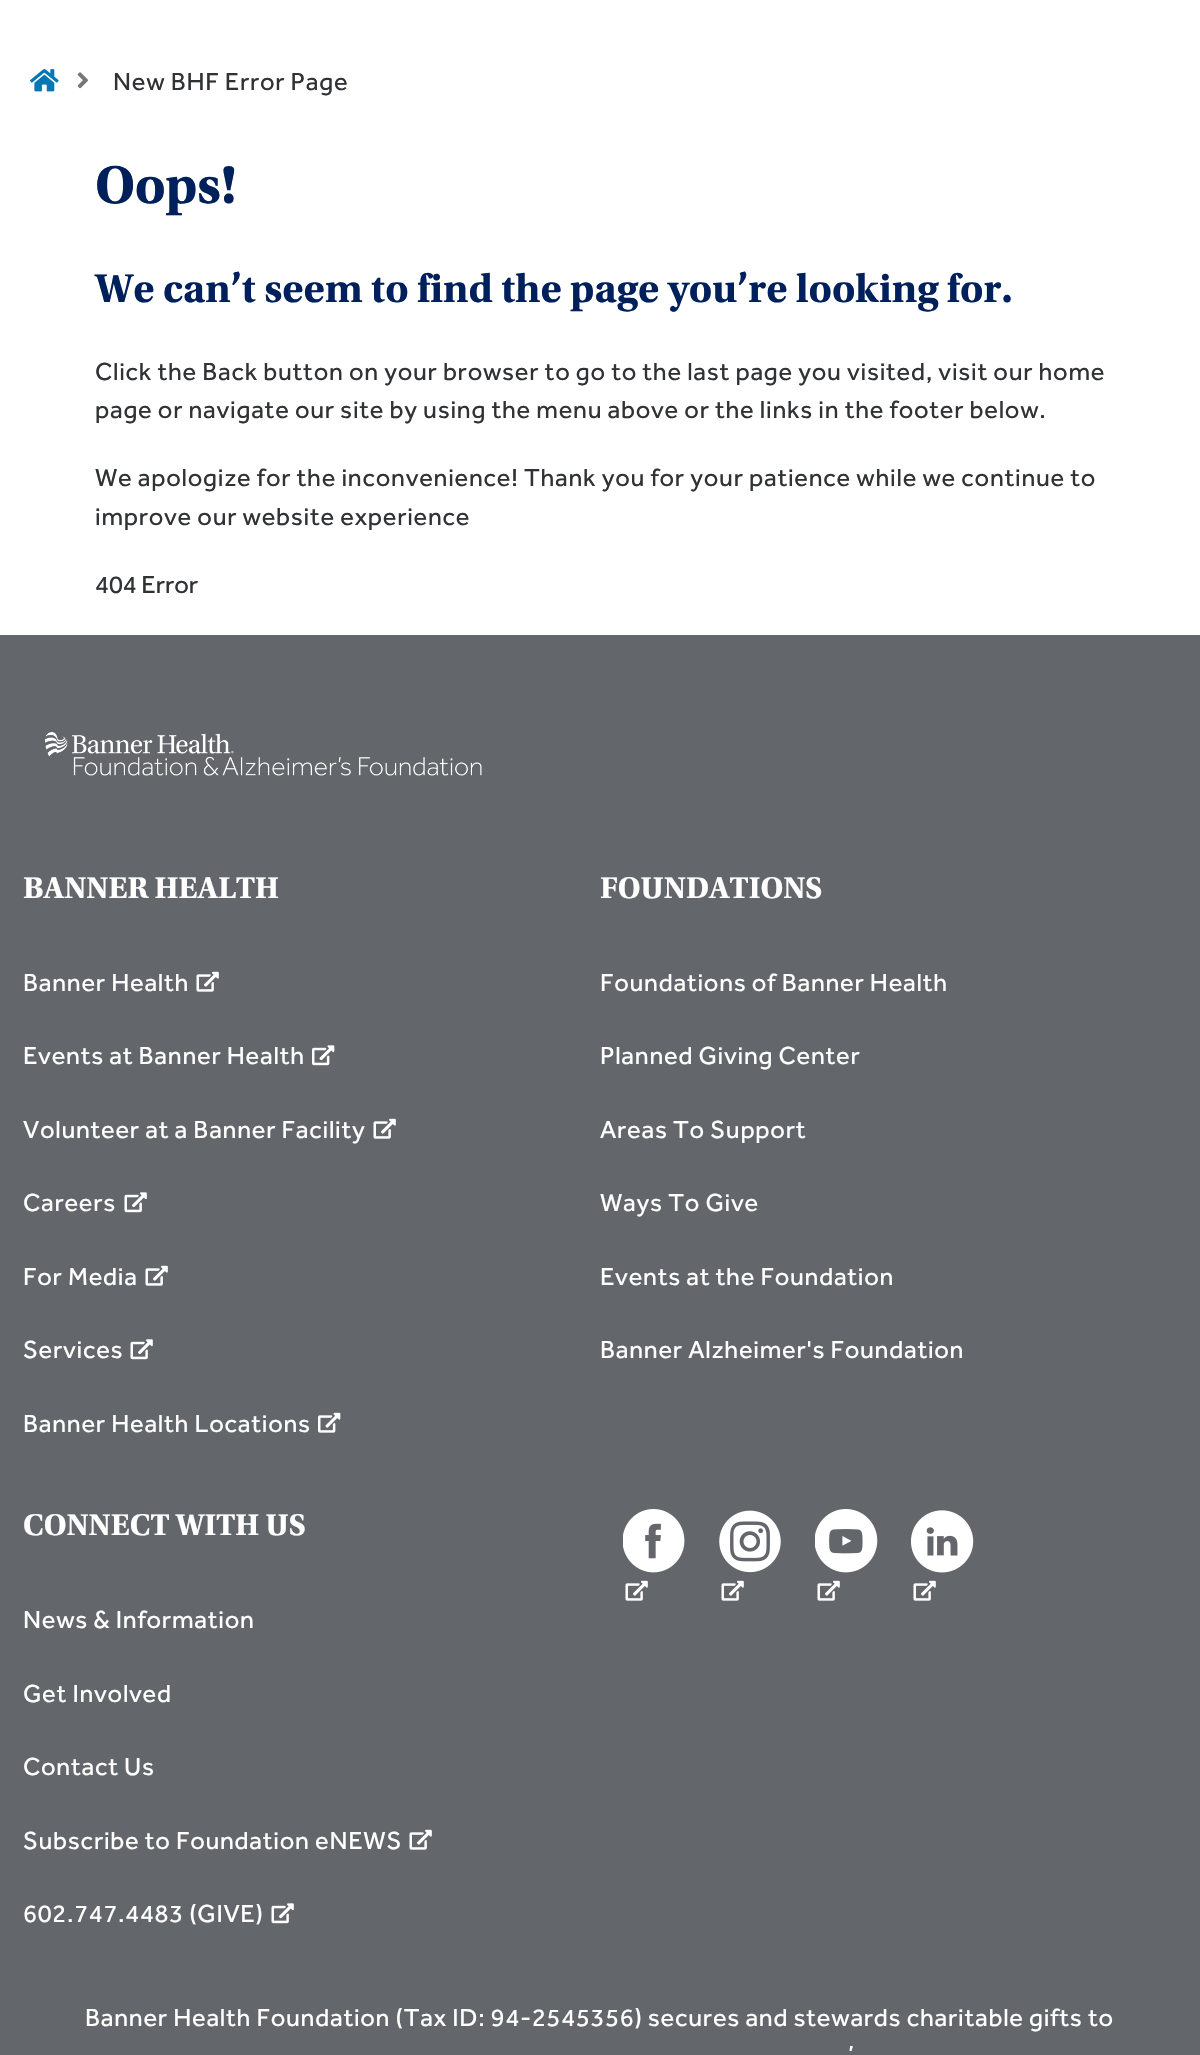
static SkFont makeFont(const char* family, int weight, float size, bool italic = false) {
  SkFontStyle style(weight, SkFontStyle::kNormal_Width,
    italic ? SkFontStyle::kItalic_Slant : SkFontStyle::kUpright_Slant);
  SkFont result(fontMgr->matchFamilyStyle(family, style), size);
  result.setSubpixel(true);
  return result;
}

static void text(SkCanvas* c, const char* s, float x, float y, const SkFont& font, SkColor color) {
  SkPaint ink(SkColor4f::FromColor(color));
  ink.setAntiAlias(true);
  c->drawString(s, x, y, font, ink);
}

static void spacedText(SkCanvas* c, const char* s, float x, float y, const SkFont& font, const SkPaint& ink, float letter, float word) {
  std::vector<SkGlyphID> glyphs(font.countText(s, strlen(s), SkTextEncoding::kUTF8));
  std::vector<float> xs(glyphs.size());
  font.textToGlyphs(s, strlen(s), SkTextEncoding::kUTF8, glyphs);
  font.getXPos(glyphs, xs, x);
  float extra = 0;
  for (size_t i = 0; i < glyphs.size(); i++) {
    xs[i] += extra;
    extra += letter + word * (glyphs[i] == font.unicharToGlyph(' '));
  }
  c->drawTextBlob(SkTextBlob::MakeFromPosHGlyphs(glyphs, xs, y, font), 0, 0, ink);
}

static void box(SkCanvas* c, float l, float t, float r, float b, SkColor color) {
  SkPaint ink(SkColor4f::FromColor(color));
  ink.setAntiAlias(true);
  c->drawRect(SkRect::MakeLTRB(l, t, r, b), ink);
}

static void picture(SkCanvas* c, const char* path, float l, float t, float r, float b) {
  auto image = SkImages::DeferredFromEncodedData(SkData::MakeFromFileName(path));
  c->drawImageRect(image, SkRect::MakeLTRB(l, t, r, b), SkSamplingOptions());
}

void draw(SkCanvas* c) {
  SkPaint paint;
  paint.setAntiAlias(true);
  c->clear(0xffffffff);
  picture(c, "img_01.png", 30, 69, 59, 92);
  picture(c, "img_02.png", 77, 72, 88, 89);
  SkFont face1 = makeFont("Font", 400, 25.5f);
  paint.setColor(0xff303235);
  spacedText(c, "New BHF Error Page", 113, 90, face1, paint, 0.73f, 0);
  SkFont face2 = makeFont("Utopia", 700, 55.5f);
  paint.setColor(0xff00205b);
  spacedText(c, "Oops!", 95, 203, face2, paint, -0.5f, 0);
  SkFont face3 = makeFont("Utopia", 700, 42);
  text(c, "We can’t seem to find the page you’re looking for.", 95, 302, face3, 0xff00205b);
  paint.setColor(0xff303235);
  spacedText(c, "Click the Back button on your browser to go to the last page you visited, visit our home", 95, 380, face1, paint, 0.73f, 0);
  spacedText(c, "page or navigate our site by using the menu above or the links in the footer below.", 95, 418, face1, paint, 0.73f, 0);
  spacedText(c, "We apologize for the inconvenience! Thank you for your patience while we continue to", 95, 486, face1, paint, 0.73f, 0);
  spacedText(c, "improve our website experience", 95, 525, face1, paint, 0.73f, 0);
  text(c, "404 Error", 95, 593, face1, 0xff303235);
  box(c, 0, 635, 1200, 2055, 0xff63666a);
  picture(c, "img_03.png", 45, 732, 482, 776);
  SkFont face4 = makeFont("Utopia", 700, 31.5f);
  text(c, "BANNER HEALTH", 23, 898, face4, 0xffffffff);
  paint.setColor(0xffffffff);
  spacedText(c, "Banner Health", 23, 991, face1, paint, 0.73f, 0);
  picture(c, "img_04.png", 196, 971, 219, 992);
  spacedText(c, "Events at Banner Health", 23, 1064, face1, paint, 0.73f, 0);
  picture(c, "img_05.png", 312, 1045, 335, 1066);
  spacedText(c, "Volunteer at a Banner Facility", 23, 1138, face1, paint, 0.73f, 0);
  picture(c, "img_04.png", 373, 1118, 396, 1139);
  spacedText(c, "Careers", 23, 1211, face1, paint, 0.73f, 0);
  picture(c, "img_06.png", 124, 1192, 147, 1213);
  spacedText(c, "For Media", 23, 1285, face1, paint, 0.73f, 0);
  picture(c, "img_04.png", 145, 1265, 168, 1286);
  spacedText(c, "Services", 23, 1358, face1, paint, 0.73f, 0);
  picture(c, "img_06.png", 130, 1339, 153, 1360);
  spacedText(c, "Banner Health Locations", 23, 1432, face1, paint, 0.73f, 0);
  picture(c, "img_07.png", 318, 1412, 341, 1433);
  text(c, "FOUNDATIONS", 600, 898, face4, 0xffffffff);
  spacedText(c, "Foundations of Banner Health", 600, 991, face1, paint, 0.73f, 0);
  spacedText(c, "Planned Giving Center", 600, 1064, face1, paint, 0.73f, 0);
  spacedText(c, "Areas To Support", 600, 1138, face1, paint, 0.73f, 0);
  spacedText(c, "Ways To Give", 600, 1211, face1, paint, 0.73f, 0);
  spacedText(c, "Events at the Foundation", 600, 1285, face1, paint, 0.73f, 0);
  spacedText(c, "Banner Alzheimer's Foundation", 600, 1358, face1, paint, 0.73f, 0);
  text(c, "CONNECT WITH US", 23, 1535, face4, 0xffffffff);
  spacedText(c, "News & Information", 23, 1628, face1, paint, 0.73f, 0);
  spacedText(c, "Get Involved", 23, 1702, face1, paint, 0.73f, 0);
  spacedText(c, "Contact Us", 23, 1775, face1, paint, 0.73f, 0);
  spacedText(c, "Subscribe to Foundation eNEWS", 23, 1849, face1, paint, 0.73f, 0);
  picture(c, "img_04.png", 409, 1829, 432, 1850);
  spacedText(c, "602.747.4483 (GIVE)", 23, 1922, face1, paint, 0.73f, 0);
  picture(c, "img_06.png", 271, 1903, 294, 1924);
  picture(c, "img_08.png", 623, 1509, 685, 1573);
  picture(c, "img_04.png", 625, 1580, 648, 1601);
  picture(c, "img_09.png", 719, 1510, 781, 1573);
  picture(c, "img_04.png", 721, 1580, 744, 1601);
  picture(c, "img_10.png", 815, 1509, 878, 1573);
  picture(c, "img_04.png", 817, 1580, 840, 1601);
  picture(c, "img_11.png", 911, 1510, 974, 1573);
  picture(c, "img_04.png", 913, 1580, 936, 1601);
  spacedText(c, "Banner Health Foundation (Tax ID: 94-2545356) secures and stewards charitable gifts to", 85, 2026, face1, paint, 0.73f, 0);
  spacedText(c, "’", 848, 2063, face1, paint, 0.73f, 0);
}
